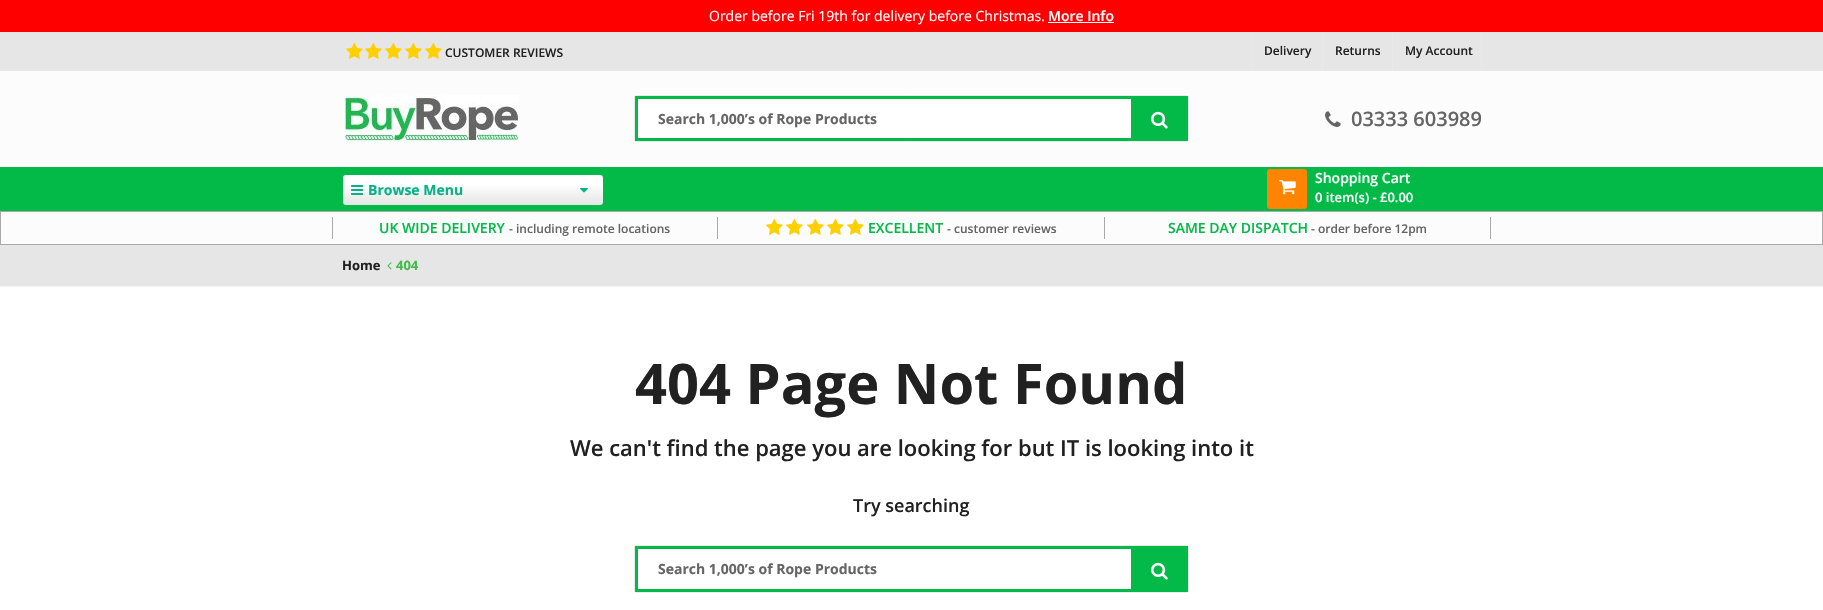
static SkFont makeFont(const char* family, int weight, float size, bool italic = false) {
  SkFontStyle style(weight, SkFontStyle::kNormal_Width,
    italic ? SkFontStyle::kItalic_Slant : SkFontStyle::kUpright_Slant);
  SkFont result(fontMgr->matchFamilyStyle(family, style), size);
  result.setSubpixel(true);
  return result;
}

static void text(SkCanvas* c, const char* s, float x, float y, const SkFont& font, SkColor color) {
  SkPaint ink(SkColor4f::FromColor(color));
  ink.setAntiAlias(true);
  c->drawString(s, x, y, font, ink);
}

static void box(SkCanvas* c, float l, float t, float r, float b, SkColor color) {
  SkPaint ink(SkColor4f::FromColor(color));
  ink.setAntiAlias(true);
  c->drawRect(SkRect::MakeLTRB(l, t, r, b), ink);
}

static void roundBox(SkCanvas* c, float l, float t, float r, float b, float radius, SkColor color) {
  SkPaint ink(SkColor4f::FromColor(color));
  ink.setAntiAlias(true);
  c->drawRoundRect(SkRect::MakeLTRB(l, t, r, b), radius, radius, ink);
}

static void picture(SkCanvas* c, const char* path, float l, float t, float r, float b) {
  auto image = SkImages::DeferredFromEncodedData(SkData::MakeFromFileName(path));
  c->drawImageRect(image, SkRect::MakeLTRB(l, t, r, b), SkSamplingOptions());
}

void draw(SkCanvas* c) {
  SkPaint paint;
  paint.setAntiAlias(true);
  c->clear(0xffffffff);
  box(c, 0, 0, 1823, 32, 0xffff0000);
  SkFont face1 = makeFont("Open Sans", 400, 14);
  text(c, "Order before Fri 19th for delivery before Christmas.", 709, 21, face1, 0xffffffff);
  SkFont face2 = makeFont("Open Sans", 600, 14);
  text(c, "More Info", 1048, 21, face2, 0xffffffff);
  box(c, 1048, 22, 1114, 23, 0xffffffff);
  box(c, 0, 71, 1823, 244, 0xfffcfcfc);
  box(c, 0, 32, 1823, 70, 0xffe6e6e6);
  box(c, 0, 70, 1823, 71, 0xffe9e9e9);
  picture(c, "img_01.png", 346, 42, 363, 59);
  picture(c, "img_01.png", 365, 42, 382, 59);
  picture(c, "img_01.png", 385, 42, 402, 59);
  picture(c, "img_01.png", 405, 42, 422, 59);
  picture(c, "img_01.png", 425, 42, 442, 59);
  SkFont face3 = makeFont("Open Sans", 600, 12);
  text(c, "CUSTOMER REVIEWS", 445, 57, face3, 0xff212121);
  box(c, 1251, 32, 1252, 70, 0xffe9e9e9);
  text(c, "Delivery", 1264, 55, face3, 0xff212121);
  box(c, 1322, 32, 1323, 70, 0xffe9e9e9);
  text(c, "Returns", 1335, 55, face3, 0xff212121);
  box(c, 1481, 32, 1482, 70, 0xffe9e9e9);
  box(c, 1392, 32, 1393, 70, 0xffe9e9e9);
  text(c, "My Account", 1405, 55, face3, 0xff212121);
  picture(c, "img_02.png", 342, 95, 519, 143);
  paint.setColor(0xffffffff);
  c->drawRoundRect(SkRect::MakeLTRB(634.5f, 95.5f, 1188.5f, 141.5f), 2.5f, 2.5f, paint);
  paint.setStyle(SkPaint::kStroke_Style);
  paint.setStrokeWidth(1);
  paint.setColor(0xffe9e9e9);
  c->drawRoundRect(SkRect::MakeLTRB(634.5f, 95.5f, 1188.5f, 141.5f), 2.5f, 2.5f, paint);
  paint.setStrokeWidth(3);
  paint.setColor(0xff03ba48);
  c->drawRect(SkRect::MakeLTRB(636.5f, 97.5f, 1186.5f, 139.5f), paint);
  SkFont face4 = makeFont("Open Sans", 700, 14);
  text(c, "Search 1,000’s of Rope Products", 658, 124, face4, 0xff656565);
  paint.setStyle(SkPaint::kFill_Style);
  c->drawPath(SkPathBuilder().moveTo(1131, 98).lineTo(1184, 98).cubicTo(1185.5f, 98, 1187, 99.5f, 1187, 101).lineTo(1187, 136).cubicTo(1187, 137.5f, 1185.5f, 139, 1184, 139).lineTo(1131, 139).close().detach(), paint);
  picture(c, "img_03.png", 1151, 111, 1168, 129);
  picture(c, "img_04.png", 1325, 111, 1341, 127);
  SkFont face5 = makeFont("Open Sans", 600, 20);
  text(c, "03333 603989", 1351, 126, face5, 0xff656565);
  box(c, 0, 167, 1823, 211, 0xff03ba48);
  {
    const SkColor colors[] = {0xffffffff, 0xfff1f1f1, 0xffe5e5e5};
    const float stops[] = {0.3f, 0.65f, 1};
    const SkPoint ends[] = {{473, 175}, {473, 205}};
    paint.setShader(SkGradientShader::MakeLinear(ends, colors, stops, 3, SkTileMode::kClamp));
    paint.setAlpha(255);
  }
  c->drawRoundRect(SkRect::MakeLTRB(343, 175, 603, 205), 3, 3, paint);
  picture(c, "img_05.png", 351, 185, 363, 195);
  text(c, "Browse Menu", 368, 195, face4, 0xff03b384);
  picture(c, "img_06.png", 580, 188, 588, 193);
  roundBox(c, 1267, 169, 1307, 209, 3, 0xffff8400);
  picture(c, "img_07.png", 1279, 180, 1296, 195);
  text(c, "Shopping Cart", 1315, 183, face2, 0xffffffff);
  SkFont face6 = makeFont("Open Sans", 600, 13);
  text(c, "0 item(s) - £0.00", 1315, 202, face6, 0xffffffff);
  paint.setStyle(SkPaint::kStroke_Style);
  paint.setStrokeWidth(1);
  paint.setShader(nullptr);
  paint.setColor(0xffaaaaaa);
  c->drawRect(SkRect::MakeLTRB(0.5f, 211.5f, 1822.5f, 244.5f), paint);
  box(c, 717, 217, 718, 239, 0xffaaaaaa);
  box(c, 332, 217, 333, 239, 0xffaaaaaa);
  text(c, "UK WIDE DELIVERY", 379, 233, face2, 0xff03ba48);
  text(c, "- including remote locations", 509, 233, face3, 0xff656565);
  box(c, 1104, 217, 1105, 239, 0xffaaaaaa);
  picture(c, "img_08.png", 766, 218, 783, 235);
  picture(c, "img_08.png", 786, 218, 803, 235);
  picture(c, "img_08.png", 807, 218, 824, 235);
  picture(c, "img_08.png", 827, 218, 844, 235);
  picture(c, "img_08.png", 847, 218, 864, 235);
  text(c, "EXCELLENT", 868, 233, face2, 0xff03ba48);
  text(c, "- customer reviews", 947, 233, face3, 0xff656565);
  box(c, 1490, 217, 1491, 239, 0xffaaaaaa);
  text(c, "SAME DAY DISPATCH", 1168, 233, face2, 0xff03ba48);
  text(c, "- order before 12pm", 1311, 233, face3, 0xff656565);
  box(c, 0, 245, 1823, 286, 0xffe6e6e6);
  box(c, 0, 286, 1823, 287, 0xfff5f5f5);
  SkFont face7 = makeFont("Open Sans", 700, 13);
  text(c, "Home", 342, 270, face7, 0xff212121);
  picture(c, "img_09.png", 387, 262, 392, 270);
  text(c, "404", 396, 270, face7, 0xff3fbb48);
  SkFont face8 = makeFont("Open Sans", 700, 56);
  text(c, "404 Page Not Found", 635, 404, face8, 0xff212121);
  SkFont face9 = makeFont("Open Sans", 600, 22);
  text(c, "We can't find the page you are looking for but IT is looking into it", 570, 456, face9, 0xff212121);
  SkFont face10 = makeFont("Open Sans", 600, 18);
  text(c, "Try searching", 853, 512, face10, 0xff212121);
  paint.setColor(0xffe9e9e9);
  c->drawRoundRect(SkRect::MakeLTRB(634.5f, 545.5f, 1188.5f, 592.5f), 2.5f, 2.5f, paint);
  paint.setStrokeWidth(3);
  paint.setColor(0xff03ba48);
  c->drawRect(SkRect::MakeLTRB(636.5f, 547.5f, 1186.5f, 590.5f), paint);
  text(c, "Search 1,000’s of Rope Products", 658, 574, face4, 0xff656565);
  paint.setStyle(SkPaint::kFill_Style);
  c->drawPath(SkPathBuilder().moveTo(1131, 548).lineTo(1184, 548).cubicTo(1185.5f, 548, 1187, 549.5f, 1187, 551).lineTo(1187, 587).cubicTo(1187, 588.5f, 1185.5f, 590, 1184, 590).lineTo(1131, 590).close().detach(), paint);
  picture(c, "img_03.png", 1151, 562, 1168, 580);
}
